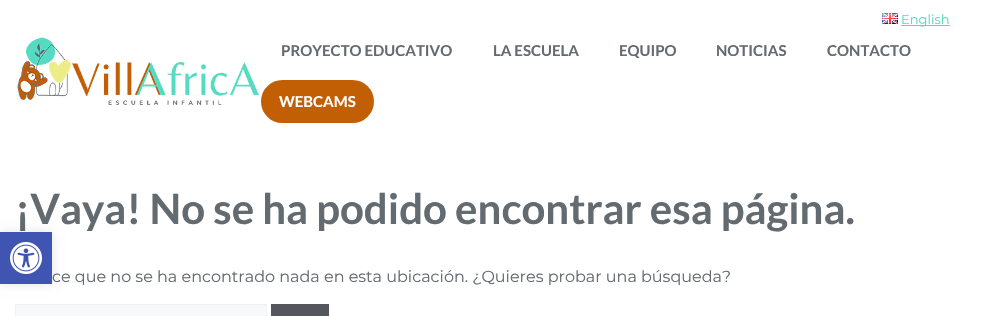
static SkFont makeFont(const char* family, int weight, float size, bool italic = false) {
  SkFontStyle style(weight, SkFontStyle::kNormal_Width,
    italic ? SkFontStyle::kItalic_Slant : SkFontStyle::kUpright_Slant);
  SkFont result(fontMgr->matchFamilyStyle(family, style), size);
  result.setSubpixel(true);
  return result;
}

static void text(SkCanvas* c, const char* s, float x, float y, const SkFont& font, SkColor color) {
  SkPaint ink(SkColor4f::FromColor(color));
  ink.setAntiAlias(true);
  c->drawString(s, x, y, font, ink);
}

static void box(SkCanvas* c, float l, float t, float r, float b, SkColor color) {
  SkPaint ink(SkColor4f::FromColor(color));
  ink.setAntiAlias(true);
  c->drawRect(SkRect::MakeLTRB(l, t, r, b), ink);
}

static void picture(SkCanvas* c, const char* path, float l, float t, float r, float b) {
  auto image = SkImages::DeferredFromEncodedData(SkData::MakeFromFileName(path));
  c->drawImageRect(image, SkRect::MakeLTRB(l, t, r, b), SkSamplingOptions());
}

void draw(SkCanvas* c) {
  SkPaint paint;
  paint.setAntiAlias(true);
  c->clear(0xffffffff);
  picture(c, "img_01.png", 882, 13, 898, 24);
  box(c, 901, 25, 950, 26, 0xff54dbc2);
  SkFont face1 = makeFont("Montserrat", 400, 13);
  text(c, "English", 901, 24, face1, 0xff54dbc2);
  picture(c, "img_02.png", 17, 37, 259, 105);
  SkFont face2 = makeFont("Lato", 700, 15);
  text(c, "PROYECTO EDUCATIVO", 281, 56, face2, 0xff636b70);
  text(c, "LA ESCUELA", 493, 56, face2, 0xff636b70);
  text(c, "EQUIPO", 619, 56, face2, 0xff636b70);
  text(c, "NOTICIAS", 716, 56, face2, 0xff636b70);
  text(c, "CONTACTO", 827, 56, face2, 0xff636b70);
  paint.setColor(0xffc25e03);
  c->drawRoundRect(SkRect::MakeLTRB(262, 81, 373, 122), 20.5f, 20.5f, paint);
  paint.setStyle(SkPaint::kStroke_Style);
  paint.setStrokeWidth(2);
  c->drawRoundRect(SkRect::MakeLTRB(262, 81, 373, 122), 20.5f, 20.5f, paint);
  text(c, "WEBCAMS", 279, 107, face2, 0xffffffff);
  SkFont face3 = makeFont("Lato", 700, 42);
  text(c, "¡Vaya! No se ha podido encontrar esa página.", 15, 224, face3, 0xff636b70);
  SkFont face4 = makeFont("Montserrat", 400, 16);
  text(c, "ce que no se ha encontrado nada en esta ubicación. ¿Quieres probar una búsqueda?", 52, 282, face4, 0xff636b70);
  paint.setStyle(SkPaint::kFill_Style);
  paint.setColor(0xfff7f8f9);
  c->drawRect(SkRect::MakeLTRB(15.5f, 304.5f, 266.5f, 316.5f), paint);
  paint.setStyle(SkPaint::kStroke_Style);
  paint.setStrokeWidth(1);
  paint.setColor(0xfff0f0f0);
  c->drawRect(SkRect::MakeLTRB(15.5f, 304.5f, 266.5f, 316.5f), paint);
  box(c, 271, 304, 329, 316, 0xff55555e);
  paint.setStyle(SkPaint::kFill_Style);
  paint.setColor(0x1a000000);
  paint.setMaskFilter(SkMaskFilter::MakeBlur(kNormal_SkBlurStyle, 5));
  c->drawRect(SkRect::MakeLTRB(0, 232, 52, 284), paint);
  paint.setMaskFilter(nullptr);
  box(c, 0, 232, 52, 284, 0xff4054b2);
  picture(c, "img_03.png", 10, 242, 42, 274);
}
